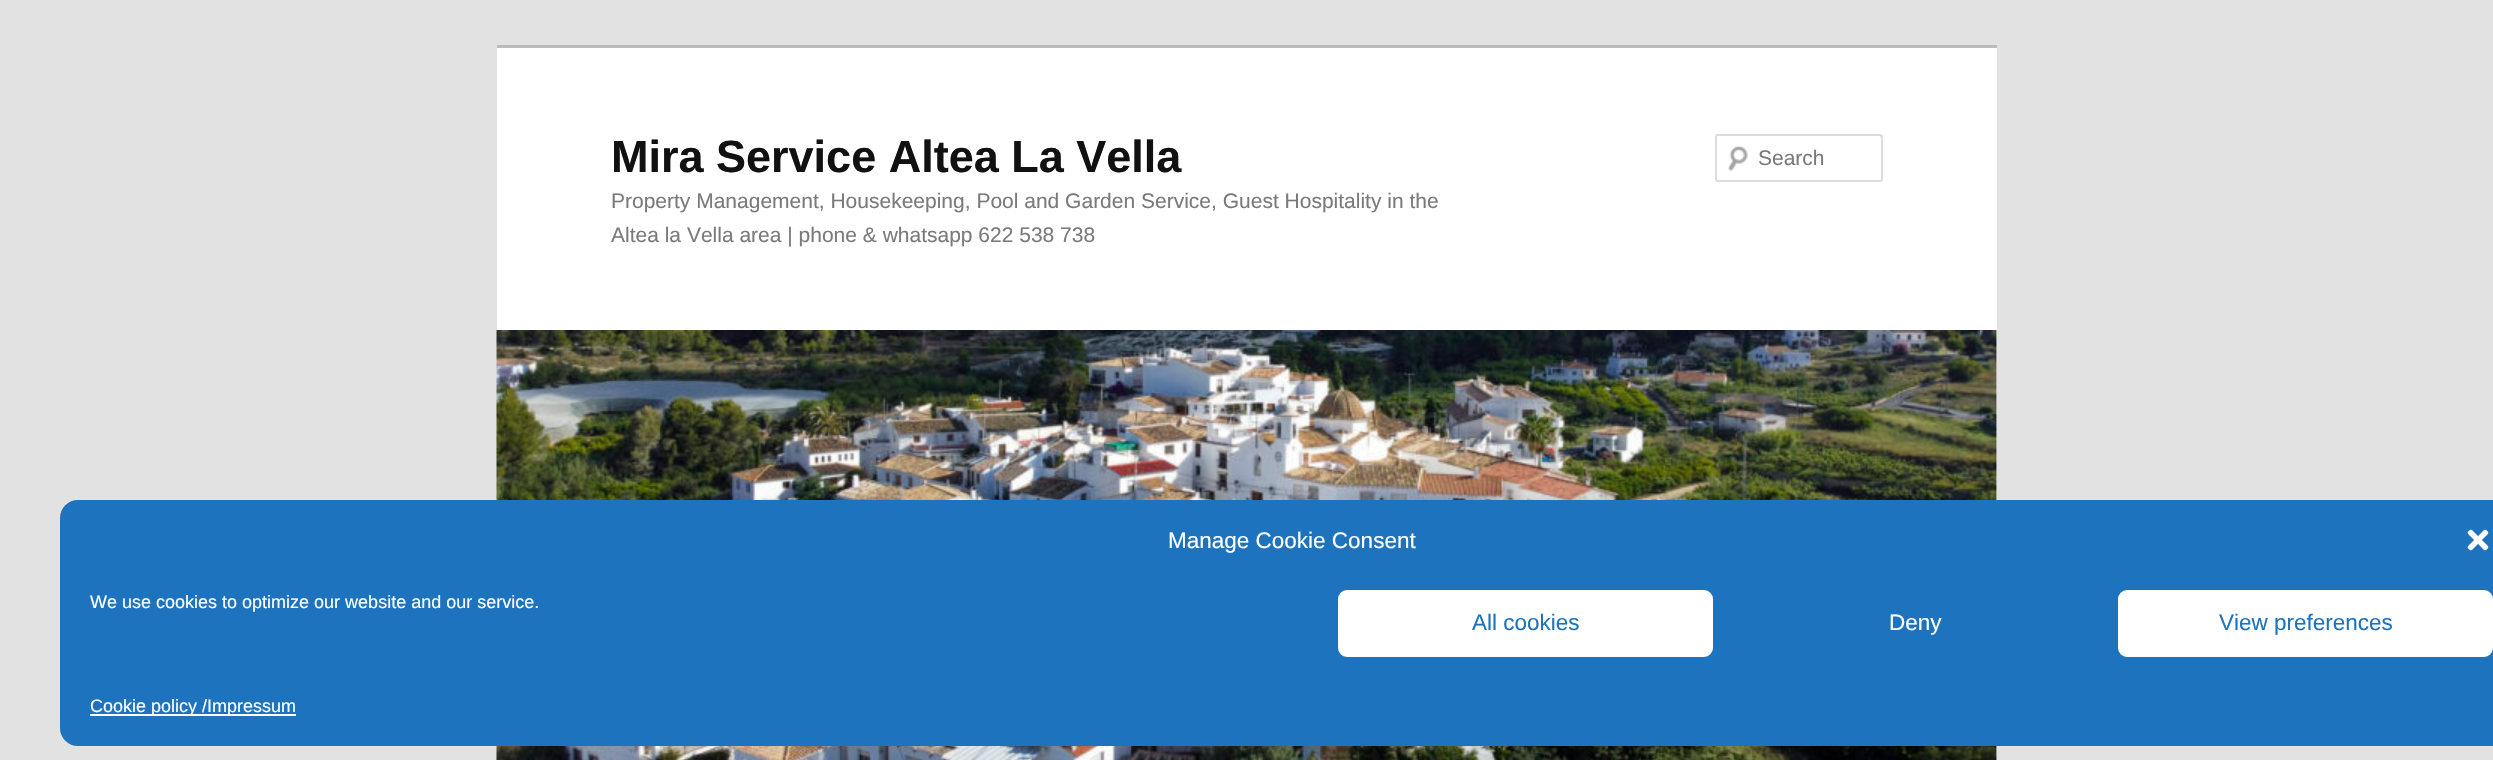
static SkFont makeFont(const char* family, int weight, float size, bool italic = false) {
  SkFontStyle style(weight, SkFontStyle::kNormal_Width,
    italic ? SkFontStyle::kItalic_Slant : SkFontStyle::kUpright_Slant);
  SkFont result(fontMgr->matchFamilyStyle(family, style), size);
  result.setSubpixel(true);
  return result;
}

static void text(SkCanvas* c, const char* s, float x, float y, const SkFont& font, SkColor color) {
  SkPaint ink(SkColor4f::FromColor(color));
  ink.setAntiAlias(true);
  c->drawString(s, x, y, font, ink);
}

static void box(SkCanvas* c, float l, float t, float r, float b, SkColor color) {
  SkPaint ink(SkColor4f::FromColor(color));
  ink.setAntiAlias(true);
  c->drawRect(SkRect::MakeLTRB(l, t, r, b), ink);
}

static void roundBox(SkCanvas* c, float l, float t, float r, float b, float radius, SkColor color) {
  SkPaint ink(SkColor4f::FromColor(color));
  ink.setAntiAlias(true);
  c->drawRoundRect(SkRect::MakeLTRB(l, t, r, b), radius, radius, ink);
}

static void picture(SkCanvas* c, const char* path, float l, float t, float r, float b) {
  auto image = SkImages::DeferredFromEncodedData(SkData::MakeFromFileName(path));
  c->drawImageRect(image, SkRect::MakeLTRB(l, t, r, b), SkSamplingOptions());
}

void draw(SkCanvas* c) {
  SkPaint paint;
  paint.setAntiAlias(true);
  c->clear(0xffe2e2e2);
  box(c, 497, 48, 1997, 760, 0xffffffff);
  box(c, 497, 45, 1997, 48, 0xffbbbbbb);
  SkFont face1 = makeFont("Liberation Sans", 700, 45);
  text(c, "Mira Service Altea La Vella", 611, 172, face1, 0xff111111);
  SkFont face2 = makeFont("Liberation Sans", 400, 21);
  text(c, "Property Management, Housekeeping, Pool and Garden Service, Guest Hospitality in the", 611, 208, face2, 0xff7a7a7a);
  text(c, "Altea la Vella area | phone & whatsapp 622 538 738", 611, 242, face2, 0xff7a7a7a);
  picture(c, "img_01.png", 1728, 145, 1748, 172);
  paint.setColor(0xffe6e6e6);
  c->drawPath(SkPathBuilder().moveTo(1718, 136).lineTo(1880, 136).lineTo(1881, 138).lineTo(1881, 136).cubicTo(1881, 136, 1880, 135, 1880, 135).lineTo(1718, 135).cubicTo(1717, 135, 1716, 136, 1716, 136).lineTo(1716, 138).cubicTo(1716, 137, 1717, 136, 1718, 136).close().detach(), paint);
  paint.setStyle(SkPaint::kStroke_Style);
  paint.setStrokeWidth(2);
  paint.setColor(0xffdddddd);
  c->drawRoundRect(SkRect::MakeLTRB(1716, 135, 1882, 181), 2, 2, paint);
  text(c, "Search", 1758, 165, face2, 0xff7a7a7a);
  picture(c, "img_02.png", 496, 330, 1997, 760);
  roundBox(c, 60, 500, 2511, 746, 18, 0xff1e73be);
  SkFont face3 = makeFont("Liberation Sans", 400, 22.5f);
  text(c, "Manage Cookie Consent", 1168, 548, face3, 0xffffffff);
  picture(c, "img_03.png", 2467, 529, 2489, 551);
  SkFont face4 = makeFont("Liberation Sans", 400, 18);
  text(c, "We use cookies to optimize our website and our service.", 90, 608, face4, 0xffffffff);
  paint.setStyle(SkPaint::kFill_Style);
  paint.setColor(0xffffffff);
  c->drawRoundRect(SkRect::MakeLTRB(1339, 591, 1712, 656), 8, 8, paint);
  paint.setStyle(SkPaint::kStroke_Style);
  c->drawRoundRect(SkRect::MakeLTRB(1339, 591, 1712, 656), 8, 8, paint);
  text(c, "All cookies", 1472, 630, face3, 0xff1e73be);
  text(c, "Deny", 1889, 630, face3, 0xffffffff);
  paint.setStyle(SkPaint::kFill_Style);
  c->drawRoundRect(SkRect::MakeLTRB(2119, 591, 2492, 656), 8, 8, paint);
  paint.setStyle(SkPaint::kStroke_Style);
  c->drawRoundRect(SkRect::MakeLTRB(2119, 591, 2492, 656), 8, 8, paint);
  text(c, "View preferences", 2219, 630, face3, 0xff1e73be);
  box(c, 90, 714, 296, 716, 0xffffffff);
  text(c, "Cookie policy /Impressum", 90, 712, face4, 0xffffffff);
}
